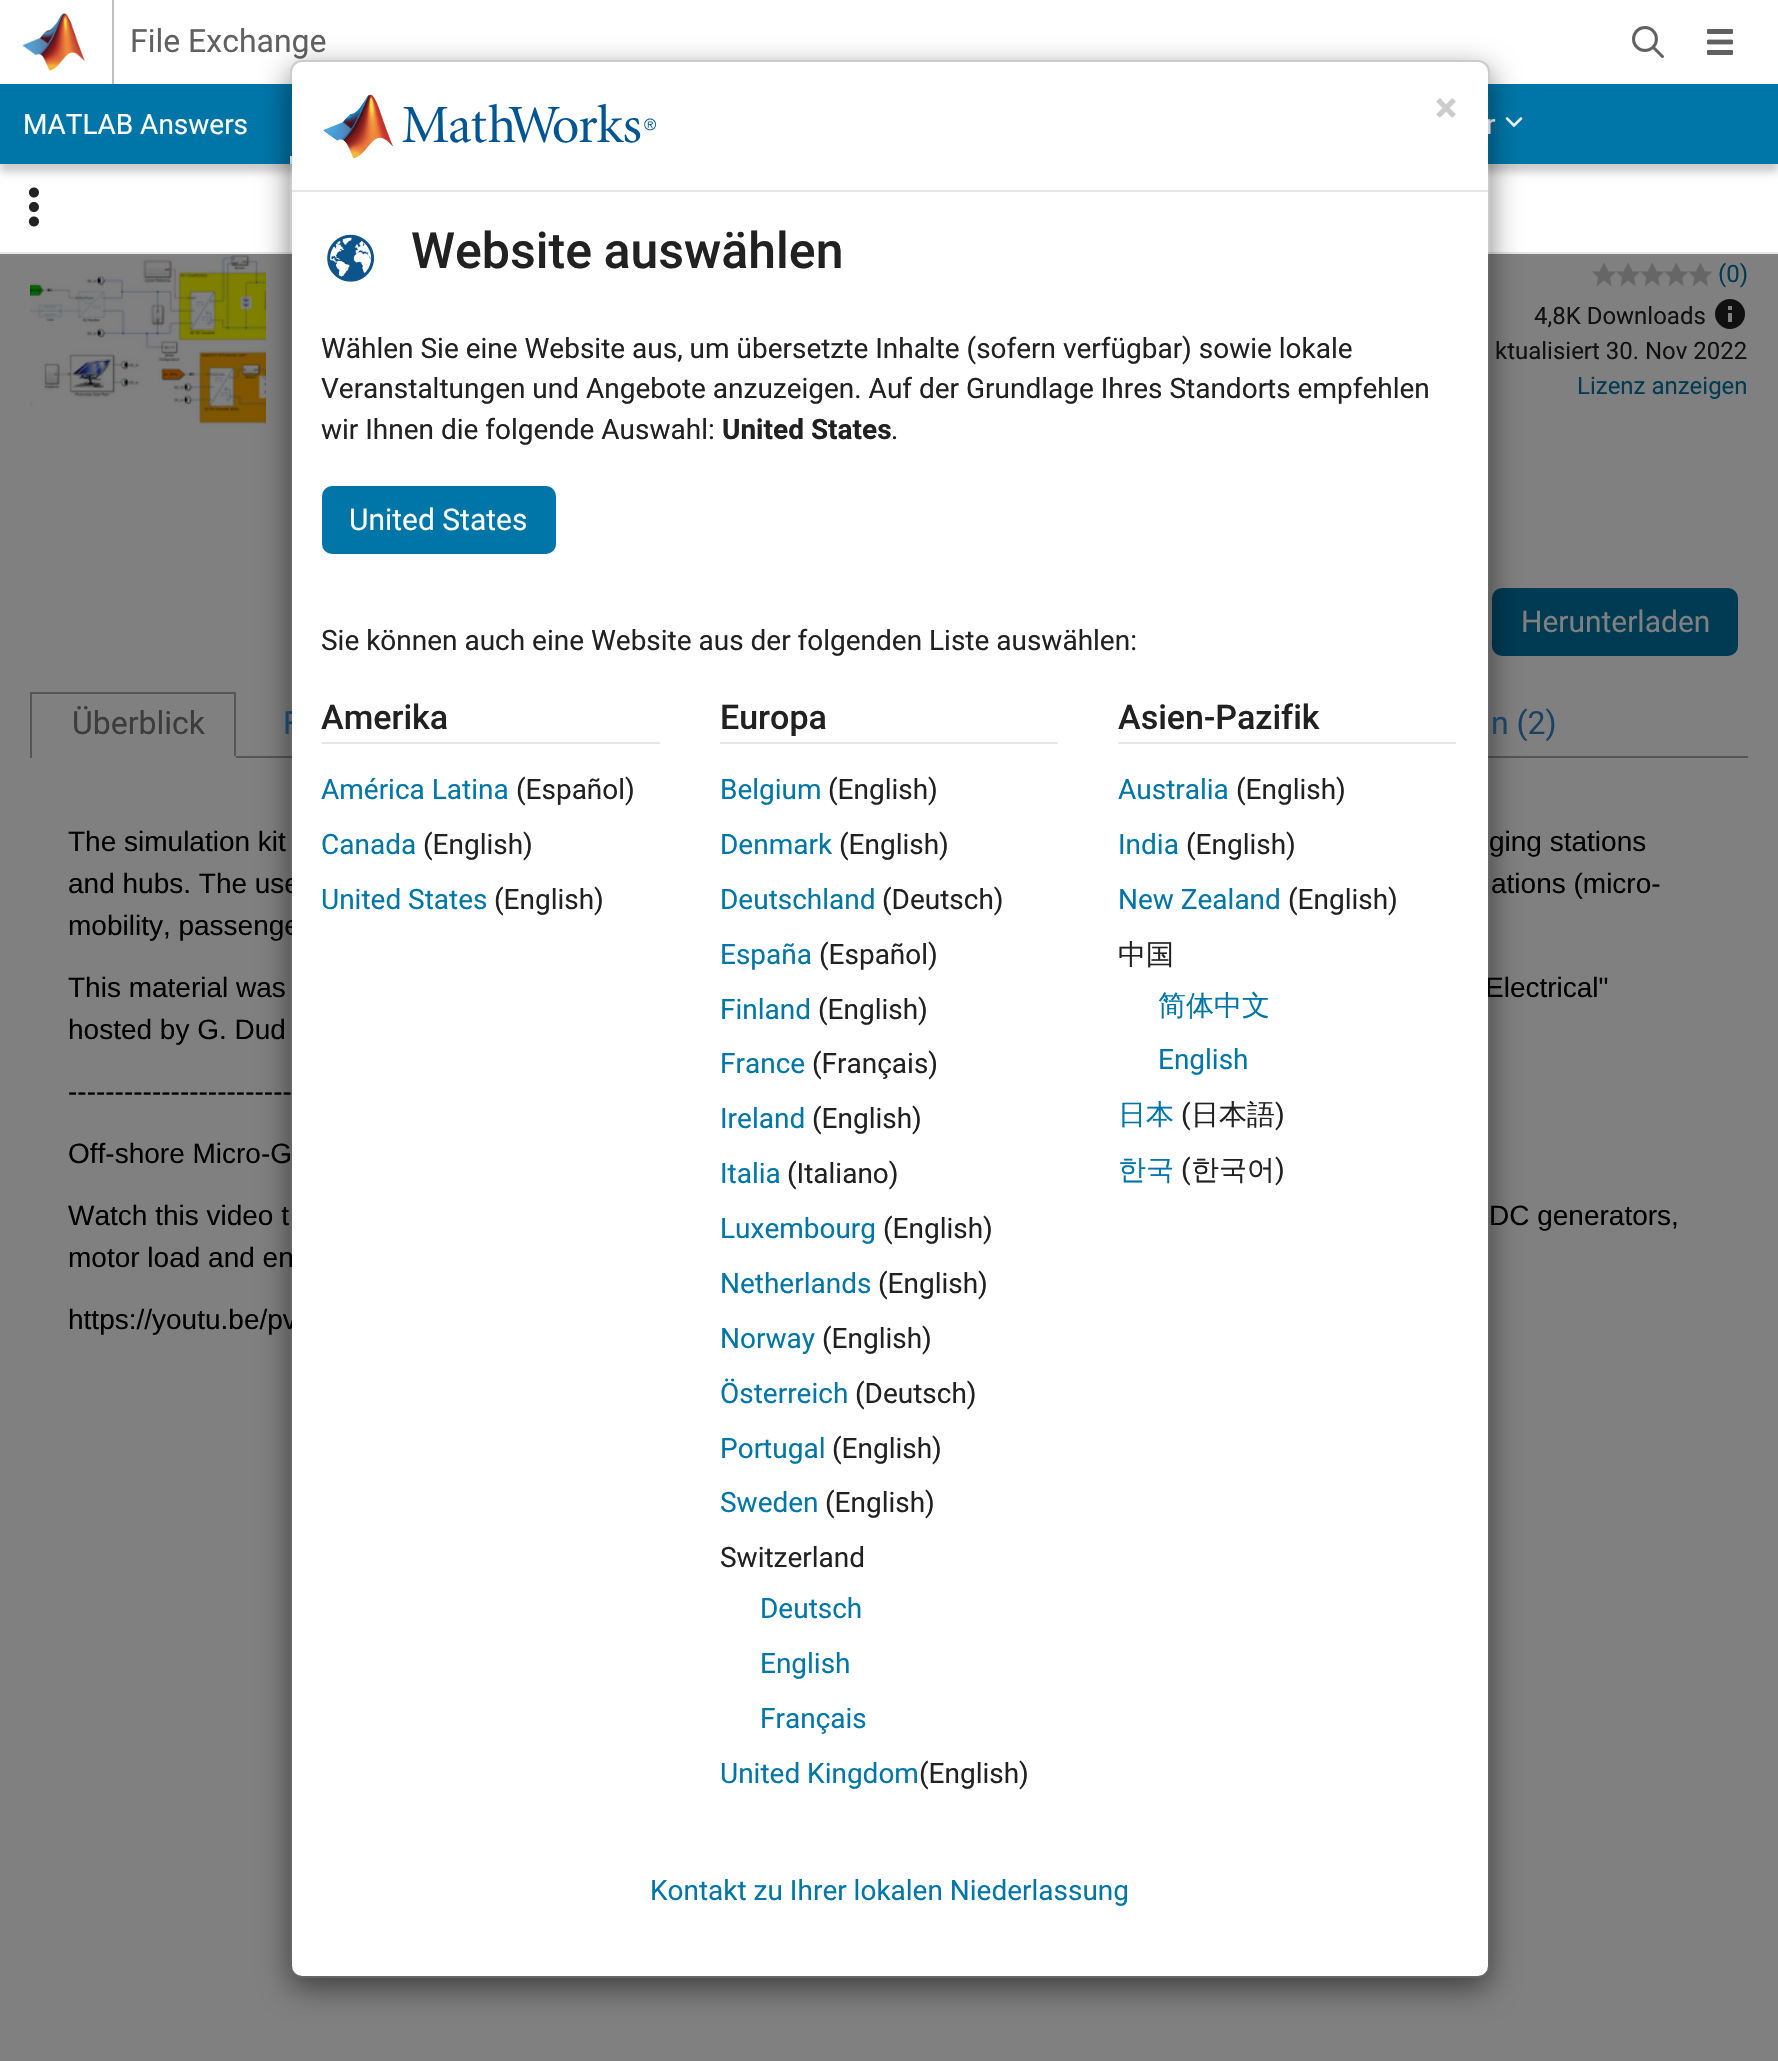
static SkFont makeFont(const char* family, int weight, float size, bool italic = false) {
  SkFontStyle style(weight, SkFontStyle::kNormal_Width,
    italic ? SkFontStyle::kItalic_Slant : SkFontStyle::kUpright_Slant);
  SkFont result(fontMgr->matchFamilyStyle(family, style), size);
  result.setSubpixel(true);
  return result;
}

static void text(SkCanvas* c, const char* s, float x, float y, const SkFont& font, SkColor color) {
  SkPaint ink(SkColor4f::FromColor(color));
  ink.setAntiAlias(true);
  c->drawString(s, x, y, font, ink);
}

static void spacedText(SkCanvas* c, const char* s, float x, float y, const SkFont& font, const SkPaint& ink, float letter, float word) {
  std::vector<SkGlyphID> glyphs(font.countText(s, strlen(s), SkTextEncoding::kUTF8));
  std::vector<float> xs(glyphs.size());
  font.textToGlyphs(s, strlen(s), SkTextEncoding::kUTF8, glyphs);
  font.getXPos(glyphs, xs, x);
  float extra = 0;
  for (size_t i = 0; i < glyphs.size(); i++) {
    xs[i] += extra;
    extra += letter + word * (glyphs[i] == font.unicharToGlyph(' '));
  }
  c->drawTextBlob(SkTextBlob::MakeFromPosHGlyphs(glyphs, xs, y, font), 0, 0, ink);
}

static void box(SkCanvas* c, float l, float t, float r, float b, SkColor color) {
  SkPaint ink(SkColor4f::FromColor(color));
  ink.setAntiAlias(true);
  c->drawRect(SkRect::MakeLTRB(l, t, r, b), ink);
}

static void roundBox(SkCanvas* c, float l, float t, float r, float b, float radius, SkColor color) {
  SkPaint ink(SkColor4f::FromColor(color));
  ink.setAntiAlias(true);
  c->drawRoundRect(SkRect::MakeLTRB(l, t, r, b), radius, radius, ink);
}

static void picture(SkCanvas* c, const char* path, float l, float t, float r, float b) {
  auto image = SkImages::DeferredFromEncodedData(SkData::MakeFromFileName(path));
  c->drawImageRect(image, SkRect::MakeLTRB(l, t, r, b), SkSamplingOptions());
}

void draw(SkCanvas* c) {
  SkPaint paint;
  paint.setAntiAlias(true);
  c->clear(0xff808080);
  box(c, 0, 0, 1778, 84, 0xffffffff);
  box(c, 112, 0, 114, 84, 0xffbfbfbf);
  picture(c, "img_01.png", 22, 13, 85, 71);
  SkFont face1 = makeFont("Roboto", 400, 32);
  text(c, "File Exchange", 130, 52, face1, 0xff616161);
  picture(c, "img_02.png", 1632, 26, 1664, 58);
  picture(c, "img_03.png", 1707, 29, 1733, 55);
  box(c, 0, 164, 1778, 252, 0xffffffff);
  paint.setColor(0x33000000);
  paint.setMaskFilter(SkMaskFilter::MakeBlur(kNormal_SkBlurStyle, 4));
  c->drawRect(SkRect::MakeLTRB(0, 92, 1778, 172), paint);
  paint.setMaskFilter(nullptr);
  box(c, 0, 84, 1778, 164, 0xff0076a8);
  SkFont face2 = makeFont("Roboto", 400, 28);
  text(c, "MATLAB Answers", 23, 134, face2, 0xffffffff);
  text(c, "r", 1486, 134, face2, 0xffffffff);
  picture(c, "img_04.png", 1505, 117, 1523, 127);
  box(c, 290, 156, 292, 164, 0xffffffff);
  box(c, 0, 252, 1778, 254, 0xffe6e6e6);
  picture(c, "img_05.png", 28, 187, 39, 227);
  picture(c, "img_08.png", 30, 255, 266, 426);
  roundBox(c, 1492, 588, 1738, 656, 10, 0xff003b54);
  box(c, 236, 756, 1748, 758, 0xff555555);
  c->save();
  c->clipPath(SkPathBuilder(SkPathFillType::kEvenOdd).moveTo(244, 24).lineTo(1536, 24).lineTo(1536, 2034).lineTo(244, 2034).close().moveTo(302, 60).lineTo(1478, 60).cubicTo(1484.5f, 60, 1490, 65.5f, 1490, 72).lineTo(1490, 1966).cubicTo(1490, 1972.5f, 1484.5f, 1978, 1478, 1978).lineTo(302, 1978).cubicTo(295.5f, 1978, 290, 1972.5f, 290, 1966).lineTo(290, 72).cubicTo(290, 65.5f, 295.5f, 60, 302, 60).close().detach(), true);
  paint.setColor(0x80000000);
  paint.setMaskFilter(SkMaskFilter::MakeBlur(kNormal_SkBlurStyle, 15));
  c->drawRoundRect(SkRect::MakeLTRB(290, 70, 1490, 1988), 12, 12, paint);
  paint.setMaskFilter(nullptr);
  c->restore();
  text(c, "F", 283, 734, face1, 0xff1b4263);
  SkFont face3 = makeFont("Liberation Sans", 400, 28);
  text(c, "and hubs. The use", 68, 893, face3, 0xff000000);
  text(c, "mobility, passenge", 68, 935, face3, 0xff000000);
  text(c, "Electrical\"", 1485, 997, face3, 0xff000000);
  text(c, "https://youtu.be/pv", 68, 1329, face3, 0xff000000);
  roundBox(c, 292, 62, 1488, 1976, 10, 0xffffffff);
  text(c, "------------------------", 68, 1101, face3, 0xff000000);
  text(c, "motor load and en", 68, 1267, face3, 0xff000000);
  paint.setStyle(SkPaint::kStroke_Style);
  paint.setStrokeWidth(2);
  paint.setColor(0x33000000);
  c->drawRoundRect(SkRect::MakeLTRB(291, 61, 1489, 1977), 11, 11, paint);
  box(c, 292, 190, 1488, 192, 0xffe5e5e5);
  picture(c, "img_06.png", 323, 94, 656, 159);
  SkFont face4 = makeFont("Roboto", 700, 42);
  text(c, "×", 1435, 122, face4, 0xffcccccc);
  picture(c, "img_07.png", 327, 234, 374, 282);
  SkFont face5 = makeFont("Roboto", 500, 50);
  paint.setStyle(SkPaint::kFill_Style);
  paint.setColor(0xff212121);
  spacedText(c, "Website auswählen", 411, 268, face5, paint, 0, -1);
  text(c, "Wählen Sie eine Website aus, um übersetzte Inhalte (sofern verfügbar) sowie lokale", 321, 358, face2, 0xff212121);
  text(c, "Veranstaltungen und Angebote anzuzeigen. Auf der Grundlage Ihres Standorts empfehlen", 321, 398, face2, 0xff212121);
  text(c, "wir Ihnen die folgende Auswahl:", 321, 439, face2, 0xff212121);
  SkFont face6 = makeFont("Roboto", 700, 28);
  text(c, "United States", 722, 439, face6, 0xff212121);
  text(c, ".", 891, 439, face2, 0xff212121);
  roundBox(c, 322, 486, 556, 554, 10, 0xff0076a8);
  SkFont face7 = makeFont("Roboto", 400, 30);
  text(c, "United States", 349, 530, face7, 0xffffffff);
  text(c, "Sie können auch eine Website aus der folgenden Liste auswählen:", 321, 650, face2, 0xff212121);
  box(c, 322, 742, 660, 744, 0xffe6e6e6);
  SkFont face8 = makeFont("Roboto", 500, 34);
  text(c, "Amerika", 321, 729, face8, 0xff212121);
  text(c, "América Latina", 321, 799, face2, 0xff0076a8);
  text(c, "(Español)", 516, 799, face2, 0xff212121);
  text(c, "Canada", 321, 854, face2, 0xff0076a8);
  text(c, "(English)", 423, 854, face2, 0xff212121);
  text(c, "United States", 321, 909, face2, 0xff0076a8);
  text(c, "(English)", 494, 909, face2, 0xff212121);
  box(c, 720, 742, 1058, 744, 0xffe6e6e6);
  text(c, "Europa", 720, 729, face8, 0xff212121);
  text(c, "Belgium", 720, 799, face2, 0xff0076a8);
  text(c, "(English)", 828, 799, face2, 0xff212121);
  text(c, "Denmark", 720, 854, face2, 0xff0076a8);
  text(c, "(English)", 839, 854, face2, 0xff212121);
  text(c, "Deutschland", 720, 909, face2, 0xff0076a8);
  text(c, "(Deutsch)", 882, 909, face2, 0xff212121);
  text(c, "España", 720, 964, face2, 0xff0076a8);
  text(c, "(Español)", 819, 964, face2, 0xff212121);
  text(c, "Finland", 720, 1019, face2, 0xff0076a8);
  text(c, "(English)", 818, 1019, face2, 0xff212121);
  text(c, "France", 720, 1073, face2, 0xff0076a8);
  text(c, "(Français)", 812, 1073, face2, 0xff212121);
  text(c, "Ireland", 720, 1128, face2, 0xff0076a8);
  text(c, "(English)", 812, 1128, face2, 0xff212121);
  text(c, "Italia", 720, 1183, face2, 0xff0076a8);
  text(c, "(Italiano)", 787, 1183, face2, 0xff212121);
  text(c, "Luxembourg", 720, 1238, face2, 0xff0076a8);
  text(c, "(English)", 883, 1238, face2, 0xff212121);
  text(c, "Netherlands", 720, 1293, face2, 0xff0076a8);
  text(c, "(English)", 878, 1293, face2, 0xff212121);
  text(c, "Norway", 720, 1348, face2, 0xff0076a8);
  text(c, "(English)", 822, 1348, face2, 0xff212121);
  text(c, "Österreich", 720, 1403, face2, 0xff0076a8);
  text(c, "(Deutsch)", 855, 1403, face2, 0xff212121);
  text(c, "Portugal", 720, 1458, face2, 0xff0076a8);
  text(c, "(English)", 832, 1458, face2, 0xff212121);
  text(c, "Sweden", 720, 1512, face2, 0xff0076a8);
  text(c, "(English)", 825, 1512, face2, 0xff212121);
  text(c, "Switzerland", 720, 1567, face2, 0xff212121);
  text(c, "Deutsch", 760, 1618, face2, 0xff0076a8);
  text(c, "English", 760, 1673, face2, 0xff0076a8);
  text(c, "Français", 760, 1728, face2, 0xff0076a8);
  text(c, "United Kingdom", 720, 1783, face2, 0xff0076a8);
  text(c, "(English)", 919, 1783, face2, 0xff212121);
  box(c, 1118, 742, 1456, 744, 0xffe6e6e6);
  text(c, "Asien-Pazifik", 1118, 729, face8, 0xff212121);
  text(c, "Australia", 1118, 799, face2, 0xff0076a8);
  text(c, "(English)", 1236, 799, face2, 0xff212121);
  text(c, "India", 1118, 854, face2, 0xff0076a8);
  text(c, "(English)", 1186, 854, face2, 0xff212121);
  text(c, "New Zealand", 1118, 909, face2, 0xff0076a8);
  text(c, "(English)", 1288, 909, face2, 0xff212121);
  SkFont face9 = makeFont("WenQuanYi Zen Hei", 500, 28);
  text(c, "中国", 1118, 964, face9, 0xff212121);
  text(c, "简体中文", 1158, 1015, face9, 0xff0076a8);
  text(c, "English", 1158, 1069, face2, 0xff0076a8);
  text(c, "日本", 1118, 1124, face9, 0xff0076a8);
  text(c, "(", 1181, 1124, face2, 0xff212121);
  text(c, "日本語", 1191, 1124, face9, 0xff212121);
  text(c, ")", 1275, 1124, face2, 0xff212121);
  text(c, "한국", 1118, 1179, face9, 0xff0076a8);
  text(c, "(", 1181, 1179, face2, 0xff212121);
  text(c, "한국어", 1191, 1179, face9, 0xff212121);
  text(c, ")", 1275, 1179, face2, 0xff212121);
  text(c, "Kontakt zu Ihrer lokalen Niederlassung", 650, 1900, face2, 0xff0076a8);
  picture(c, "img_09.png", 1592, 262, 1712, 287);
  SkFont face10 = makeFont("Roboto", 400, 24);
  text(c, "(0)", 1718, 282, face10, 0xff003b54);
  text(c, "4,8K Downloads", 1534, 324, face10, 0xff111111);
  picture(c, "img_10.png", 1715, 299, 1745, 329);
  text(c, "ktualisiert 30. Nov 2022", 1495, 359, face10, 0xff111111);
  text(c, "Lizenz anzeigen", 1577, 394, face10, 0xff003b54);
  text(c, "Herunterladen", 1521, 632, face7, 0xff808080);
  box(c, 30, 692, 236, 694, 0xff555555);
  box(c, 234, 692, 236, 758, 0xff555555);
  box(c, 234, 756, 236, 758, 0xff808080);
  box(c, 30, 692, 32, 758, 0xff555555);
  text(c, "Überblick", 72, 734, face1, 0xff3c3c3c);
  text(c, "n (2)", 1491, 734, face1, 0xff1b4263);
  text(c, "The simulation kit", 68, 851, face3, 0xff000000);
  text(c, "ging stations", 1489, 851, face3, 0xff000000);
  text(c, "ations (micro-", 1491, 893, face3, 0xff000000);
  text(c, "This material was", 68, 997, face3, 0xff000000);
  text(c, "hosted by G. Dud", 68, 1039, face3, 0xff000000);
  text(c, "Off-shore Micro-G", 68, 1163, face3, 0xff000000);
  text(c, "Watch this video t", 68, 1225, face3, 0xff000000);
  text(c, "DC generators,", 1489, 1225, face3, 0xff000000);
}
